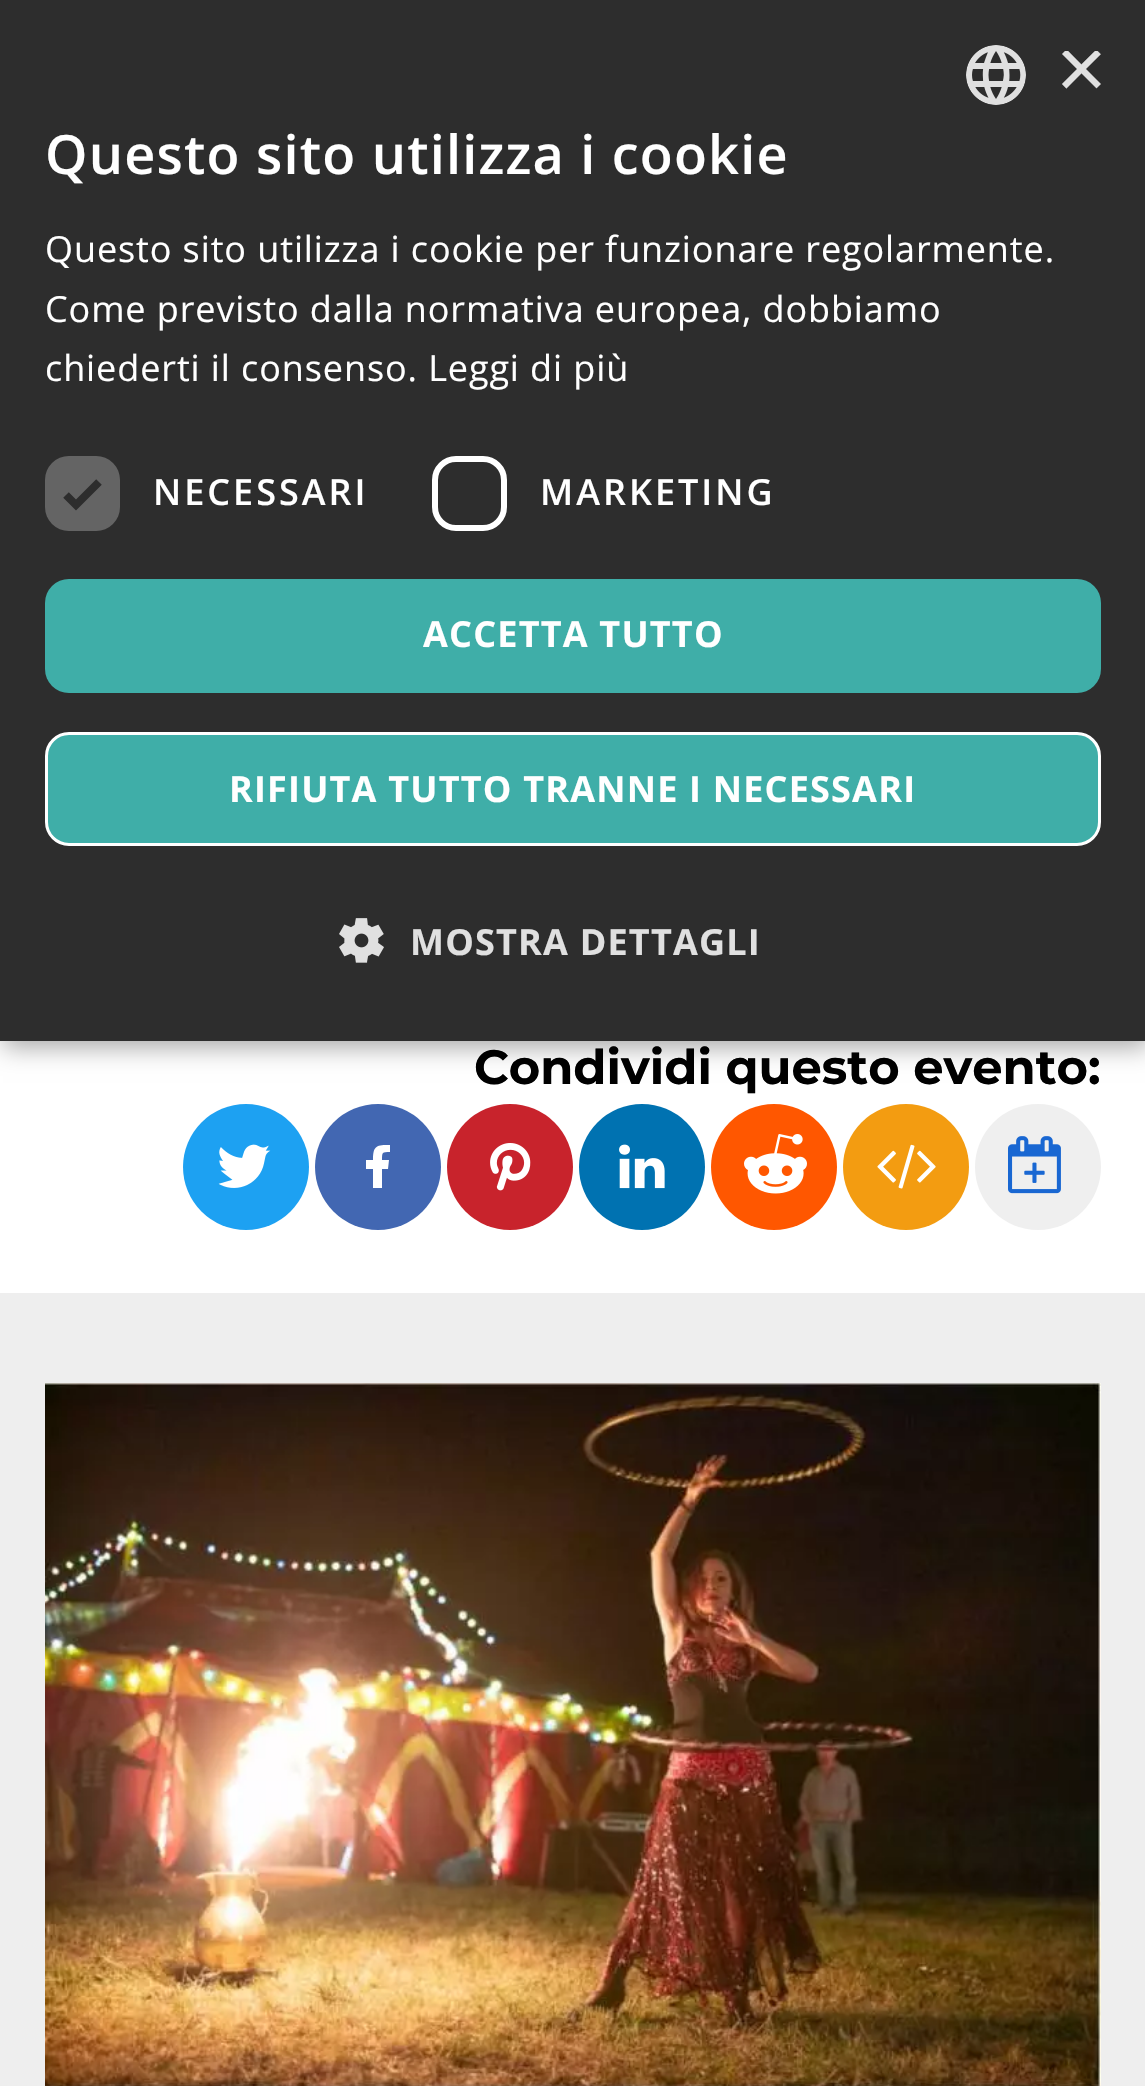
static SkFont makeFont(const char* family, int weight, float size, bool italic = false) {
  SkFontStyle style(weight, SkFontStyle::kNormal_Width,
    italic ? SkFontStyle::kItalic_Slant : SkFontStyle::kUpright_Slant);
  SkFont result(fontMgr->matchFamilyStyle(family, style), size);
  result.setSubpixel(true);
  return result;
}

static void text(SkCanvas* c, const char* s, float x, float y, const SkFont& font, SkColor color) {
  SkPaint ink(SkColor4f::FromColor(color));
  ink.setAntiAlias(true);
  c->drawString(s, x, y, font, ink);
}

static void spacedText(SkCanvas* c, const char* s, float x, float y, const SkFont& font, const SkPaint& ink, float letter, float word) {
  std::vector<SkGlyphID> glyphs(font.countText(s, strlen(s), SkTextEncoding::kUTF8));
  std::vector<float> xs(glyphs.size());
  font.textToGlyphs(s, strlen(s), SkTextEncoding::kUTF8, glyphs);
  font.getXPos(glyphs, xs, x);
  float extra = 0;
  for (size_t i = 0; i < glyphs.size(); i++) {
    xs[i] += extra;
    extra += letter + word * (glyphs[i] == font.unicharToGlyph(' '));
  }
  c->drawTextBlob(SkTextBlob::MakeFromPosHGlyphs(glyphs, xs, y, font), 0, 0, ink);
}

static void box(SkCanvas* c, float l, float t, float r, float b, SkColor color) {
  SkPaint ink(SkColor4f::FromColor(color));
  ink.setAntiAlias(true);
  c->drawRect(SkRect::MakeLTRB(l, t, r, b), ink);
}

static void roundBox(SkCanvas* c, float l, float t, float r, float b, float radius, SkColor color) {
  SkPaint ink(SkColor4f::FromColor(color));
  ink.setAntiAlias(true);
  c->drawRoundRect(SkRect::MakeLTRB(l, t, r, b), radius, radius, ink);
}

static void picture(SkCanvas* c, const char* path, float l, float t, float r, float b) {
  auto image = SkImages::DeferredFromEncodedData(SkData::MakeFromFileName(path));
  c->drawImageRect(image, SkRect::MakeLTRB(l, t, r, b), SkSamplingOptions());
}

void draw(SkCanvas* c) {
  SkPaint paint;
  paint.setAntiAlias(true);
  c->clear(0xffffffff);
  paint.setColor(0x59000000);
  paint.setMaskFilter(SkMaskFilter::MakeBlur(kNormal_SkBlurStyle, 12));
  c->drawRect(SkRect::MakeLTRB(3, 6, 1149, 1047), paint);
  paint.setMaskFilter(nullptr);
  box(c, 0, 0, 1145, 1041, 0xff2d2d2d);
  picture(c, "img_01.png", 966, 45, 1026, 105);
  c->save();
  c->clipRect(SkRect::MakeLTRB(1056, 51, 1101, 96));
  SkFont face1 = makeFont("Liberation Sans", 400, 87);
  text(c, "×", 1056, 98, face1, 0xffe0e0e0);
  c->restore();
  SkFont face2 = makeFont("Open Sans", 600, 54);
  paint.setColor(0xffffffff);
  spacedText(c, "Questo sito utilizza i cookie", 45, 174, face2, paint, 1.2f, 0);
  SkFont face3 = makeFont("Open Sans", 400, 36);
  spacedText(c, "Questo sito utilizza i cookie per funzionare regolarmente.", 45, 262, face3, paint, 0.9f, 0);
  spacedText(c, "Come previsto dalla normativa europea, dobbiamo", 45, 322, face3, paint, 0.9f, 0);
  spacedText(c, "chiederti il consenso. Leggi di più", 45, 381, face3, paint, 0.9f, 0);
  roundBox(c, 45, 456, 120, 531, 24, 0xff646464);
  paint.setStyle(SkPaint::kStroke_Style);
  paint.setStrokeWidth(7.9f);
  paint.setColor(0xff2d2d2d);
  c->drawPath(SkPathBuilder().moveTo(66, 495).lineTo(76, 505).lineTo(99, 482).detach(), paint);
  SkFont face4 = makeFont("Open Sans", 600, 36);
  paint.setStyle(SkPaint::kFill_Style);
  paint.setColor(0xffffffff);
  spacedText(c, "NECESSARI", 153, 505, face4, paint, 3, 0);
  paint.setStyle(SkPaint::kStroke_Style);
  paint.setStrokeWidth(6);
  c->drawRoundRect(SkRect::MakeLTRB(435, 459, 504, 528), 21, 21, paint);
  paint.setStyle(SkPaint::kFill_Style);
  spacedText(c, "MARKETING", 540, 505, face4, paint, 3, 0);
  roundBox(c, 45, 579, 1101, 693, 24, 0xff3faea8);
  SkFont face5 = makeFont("Open Sans", 700, 36);
  spacedText(c, "ACCETTA TUTTO", 423, 647, face5, paint, 1.2f, 0);
  paint.setColor(0xff3faea8);
  c->drawRoundRect(SkRect::MakeLTRB(46.5f, 733.5f, 1099.5f, 844.5f), 22.5f, 22.5f, paint);
  paint.setStyle(SkPaint::kStroke_Style);
  paint.setStrokeWidth(3);
  paint.setColor(0xffffffff);
  c->drawRoundRect(SkRect::MakeLTRB(46.5f, 733.5f, 1099.5f, 844.5f), 22.5f, 22.5f, paint);
  paint.setStyle(SkPaint::kFill_Style);
  spacedText(c, "RIFIUTA TUTTO TRANNE I NECESSARI", 229, 802, face5, paint, 1.2f, 0);
  picture(c, "img_02.png", 339, 918, 384, 963);
  paint.setColor(0xffe0e0e0);
  spacedText(c, "MOSTRA DETTAGLI", 410, 955, face5, paint, 1.2f, 0);
  SkFont face6 = makeFont("Montserrat", 700, 48);
  text(c, "Condividi questo evento:", 474, 1084, face6, 0xff000000);
  paint.setColor(0xff1da1f2);
  c->drawCircle(246, 1167, 63, paint);
  picture(c, "img_03.png", 218, 1144, 271, 1188);
  paint.setColor(0xff4267b2);
  c->drawCircle(378, 1167, 63, paint);
  paint.setColor(0xffffffff);
  c->drawPath(SkPathBuilder().moveTo(373, 1188).lineTo(382, 1188).lineTo(382, 1169).lineTo(388, 1169).lineTo(389, 1160).lineTo(382, 1160).cubicTo(382, 1152, 382, 1152, 390, 1152).lineTo(390, 1145).cubicTo(377, 1145, 373, 1145, 373, 1160).lineTo(366, 1160).lineTo(366, 1169).lineTo(373, 1169).close().detach(), paint);
  paint.setColor(0xffc8232c);
  c->drawCircle(510, 1167, 63, paint);
  picture(c, "img_04.png", 490, 1143, 531, 1191);
  paint.setColor(0xff0072b1);
  c->drawCircle(642, 1167, 63, paint);
  picture(c, "img_05.png", 619, 1144, 665, 1189);
  paint.setColor(0xffff5700);
  c->drawCircle(774, 1167, 63, paint);
  picture(c, "img_06.png", 744, 1134, 807, 1194);
  paint.setColor(0xfff39c11);
  c->drawCircle(906, 1167, 63, paint);
  picture(c, "img_07.png", 877, 1144, 936, 1189);
  paint.setColor(0xffefefef);
  c->drawCircle(1038, 1167, 63, paint);
  picture(c, "img_08.png", 1008, 1136, 1061, 1194);
  box(c, 0, 1293, 1145, 2086, 0xffeeeeee);
  picture(c, "img_09.png", 45, 1383, 1101, 2086);
}
